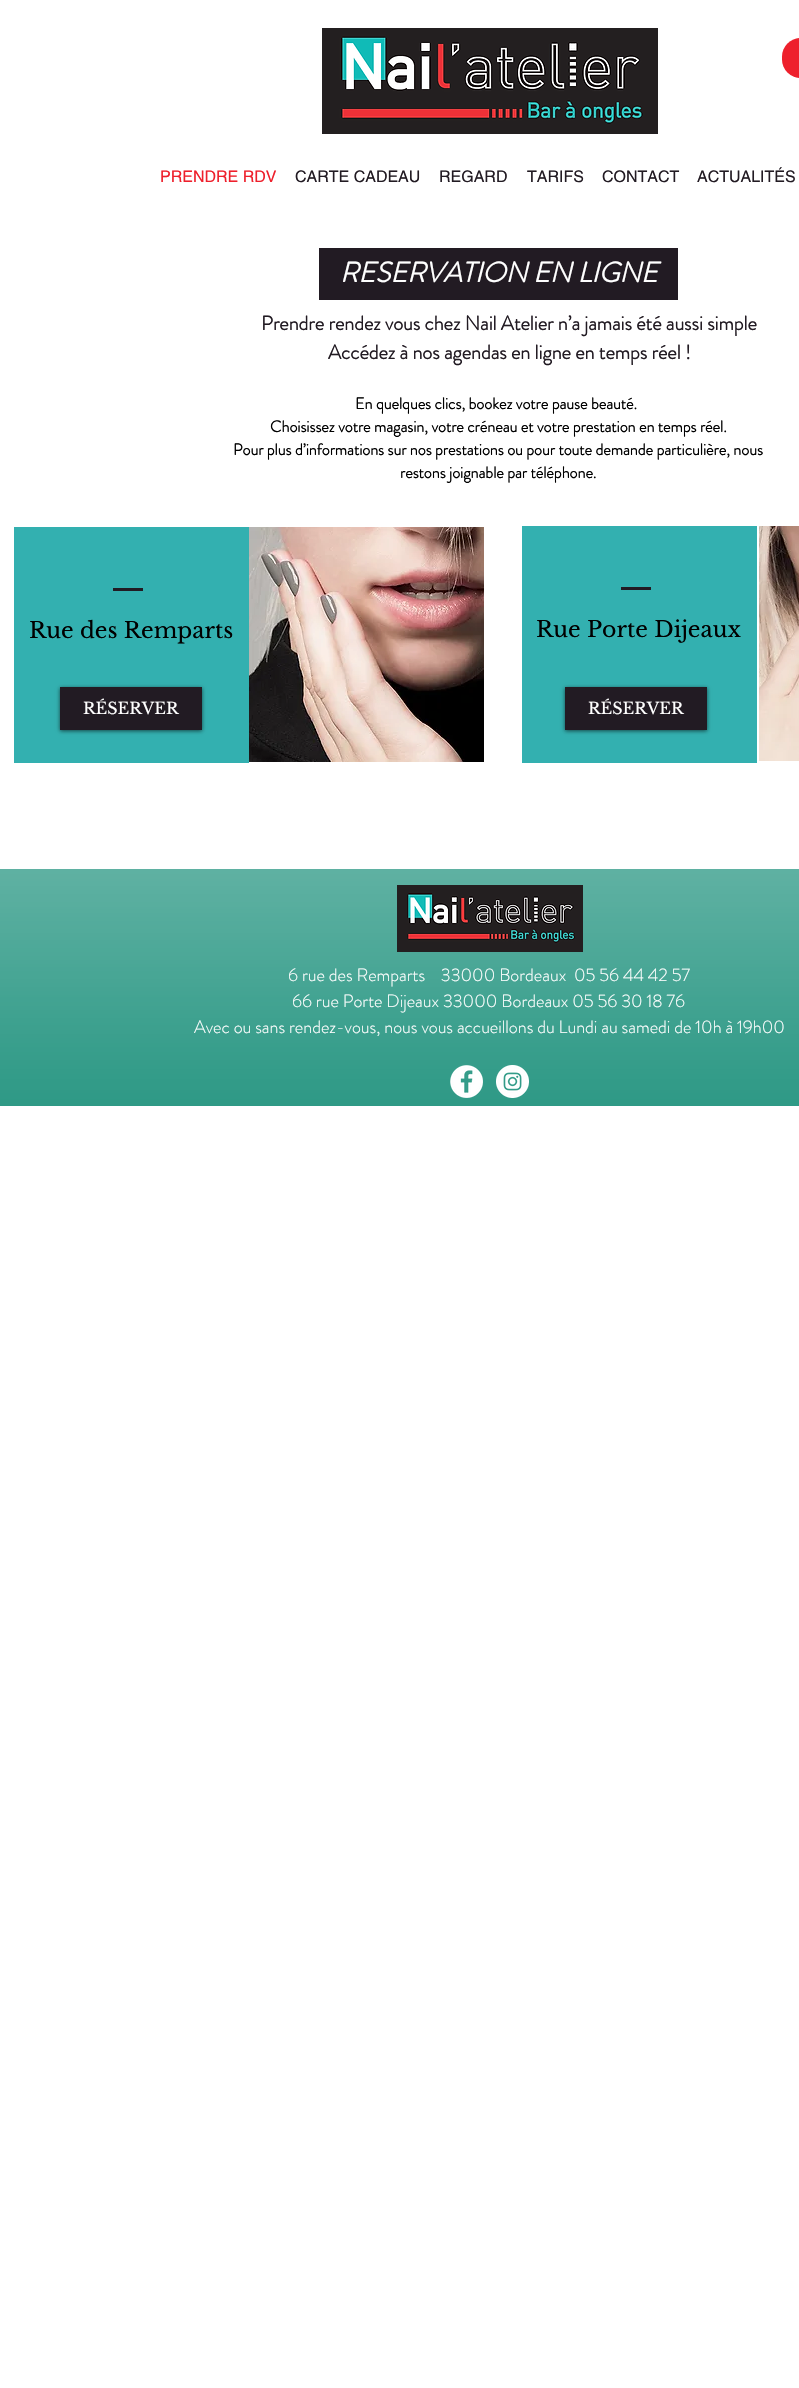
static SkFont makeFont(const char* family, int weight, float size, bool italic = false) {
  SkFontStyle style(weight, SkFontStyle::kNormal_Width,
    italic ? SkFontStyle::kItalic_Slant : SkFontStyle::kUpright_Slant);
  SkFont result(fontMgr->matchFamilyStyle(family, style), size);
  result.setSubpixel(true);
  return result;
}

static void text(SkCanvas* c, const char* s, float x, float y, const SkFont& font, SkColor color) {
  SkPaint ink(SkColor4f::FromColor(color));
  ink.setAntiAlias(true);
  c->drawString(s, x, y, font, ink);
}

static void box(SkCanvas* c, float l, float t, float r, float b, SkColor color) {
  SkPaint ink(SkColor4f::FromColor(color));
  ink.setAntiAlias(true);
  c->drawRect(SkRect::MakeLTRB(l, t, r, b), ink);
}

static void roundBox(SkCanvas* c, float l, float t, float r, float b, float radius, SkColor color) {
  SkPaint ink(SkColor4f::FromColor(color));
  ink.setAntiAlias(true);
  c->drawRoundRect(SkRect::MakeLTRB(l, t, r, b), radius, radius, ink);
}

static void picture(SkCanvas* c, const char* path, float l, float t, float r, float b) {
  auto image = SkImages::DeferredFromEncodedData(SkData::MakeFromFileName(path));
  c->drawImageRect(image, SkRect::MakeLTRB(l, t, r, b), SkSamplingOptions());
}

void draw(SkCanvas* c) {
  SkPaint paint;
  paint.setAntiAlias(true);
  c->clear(0xffffffff);
  roundBox(c, 782, 38, 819, 78, 20, 0xffee202c);
  picture(c, "img_01.png", 322, 28, 658, 134);
  SkFont face1 = makeFont("helvetica", 400, 16);
  text(c, "PRENDRE RDV", 160, 182, face1, 0xffee202c);
  text(c, "CARTE CADEAU", 295, 182, face1, 0xff221b23);
  text(c, "REGARD", 439, 182, face1, 0xff221b23);
  text(c, "TARIFS", 527, 182, face1, 0xff221b23);
  text(c, "CONTACT", 602, 182, face1, 0xff221b23);
  text(c, "ACTUALITÉS", 697, 182, face1, 0xff221b23);
  box(c, 319, 248, 678, 300, 0xff221b23);
  SkFont face2 = makeFont("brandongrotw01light", 700, 28, true);
  text(c, "RESERVATION EN LIGNE", 340, 282, face2, 0xffffffff);
  SkFont face3 = makeFont("brandongrotw01light", 700, 20);
  text(c, "Prendre rendez vous chez Nail Atelier n’a jamais été aussi simple", 261, 330, face3, 0xff221b23);
  text(c, "Accédez à nos agendas en ligne en temps réel !", 328, 359, face3, 0xff221b23);
  SkFont face4 = makeFont("brandongrotw01light", 700, 16);
  text(c, "En quelques clics, bookez votre pause beauté.", 355, 409, face4, 0xff000000);
  text(c, "Choisissez votre magasin, votre créneau et votre prestation en temps réel.", 270, 432, face4, 0xff000000);
  text(c, "Pour plus d’informations sur nos prestations ou pour toute demande particulière, nous", 233, 455, face4, 0xff000000);
  text(c, "restons joignable par téléphone.", 400, 478, face4, 0xff000000);
  box(c, 14, 527, 249, 763, 0xff33b0b0);
  box(c, 113, 588, 143, 591, 0xff221b23);
  SkFont face5 = makeFont("Libre Baskerville", 400, 22);
  text(c, "Rue des Remparts", 29, 638, face5, 0xff000000);
  paint.setColor(0x99000000);
  paint.setMaskFilter(SkMaskFilter::MakeBlur(kNormal_SkBlurStyle, 2));
  c->drawRect(SkRect::MakeLTRB(60, 688, 202, 731), paint);
  paint.setMaskFilter(nullptr);
  box(c, 60, 687, 202, 730, 0xff221b23);
  SkFont face6 = makeFont("Libre Baskerville", 400, 16);
  text(c, "RÉSERVER", 83, 714, face6, 0xffffffff);
  picture(c, "img_02.png", 249, 527, 484, 762);
  box(c, 522, 526, 757, 763, 0xff33b0b0);
  box(c, 621, 587, 651, 590, 0xff221b23);
  text(c, "Rue Porte Dijeaux", 536, 637, face5, 0xff000000);
  paint.setMaskFilter(SkMaskFilter::MakeBlur(kNormal_SkBlurStyle, 2));
  c->drawRect(SkRect::MakeLTRB(565, 688, 707, 731), paint);
  paint.setMaskFilter(nullptr);
  box(c, 565, 687, 707, 730, 0xff221b23);
  text(c, "RÉSERVER", 588, 714, face6, 0xffffffff);
  picture(c, "img_03.png", 759, 526, 799, 761);
  box(c, 0, 869, 799, 1106, 0xff279682);
  picture(c, "img_04.png", 0, 869, 799, 1106);
  picture(c, "img_05.png", 397, 885, 583, 952);
  SkFont face7 = makeFont("brandongrotw01light", 300, 18);
  text(c, "6 rue des Remparts    33000 Bordeaux  05 56 44 42 57", 288, 981, face7, 0xffffffff);
  text(c, "66 rue Porte Dijeaux 33000 Bordeaux 05 56 30 18 76", 292, 1007, face7, 0xffffffff);
  text(c, "Avec ou sans rendez-vous, nous vous accueillons du Lundi au samedi de 10h à 19h00", 194, 1033, face7, 0xffffffff);
  picture(c, "img_06.png", 450, 1065, 483, 1098);
  picture(c, "img_07.png", 496, 1065, 529, 1098);
}
